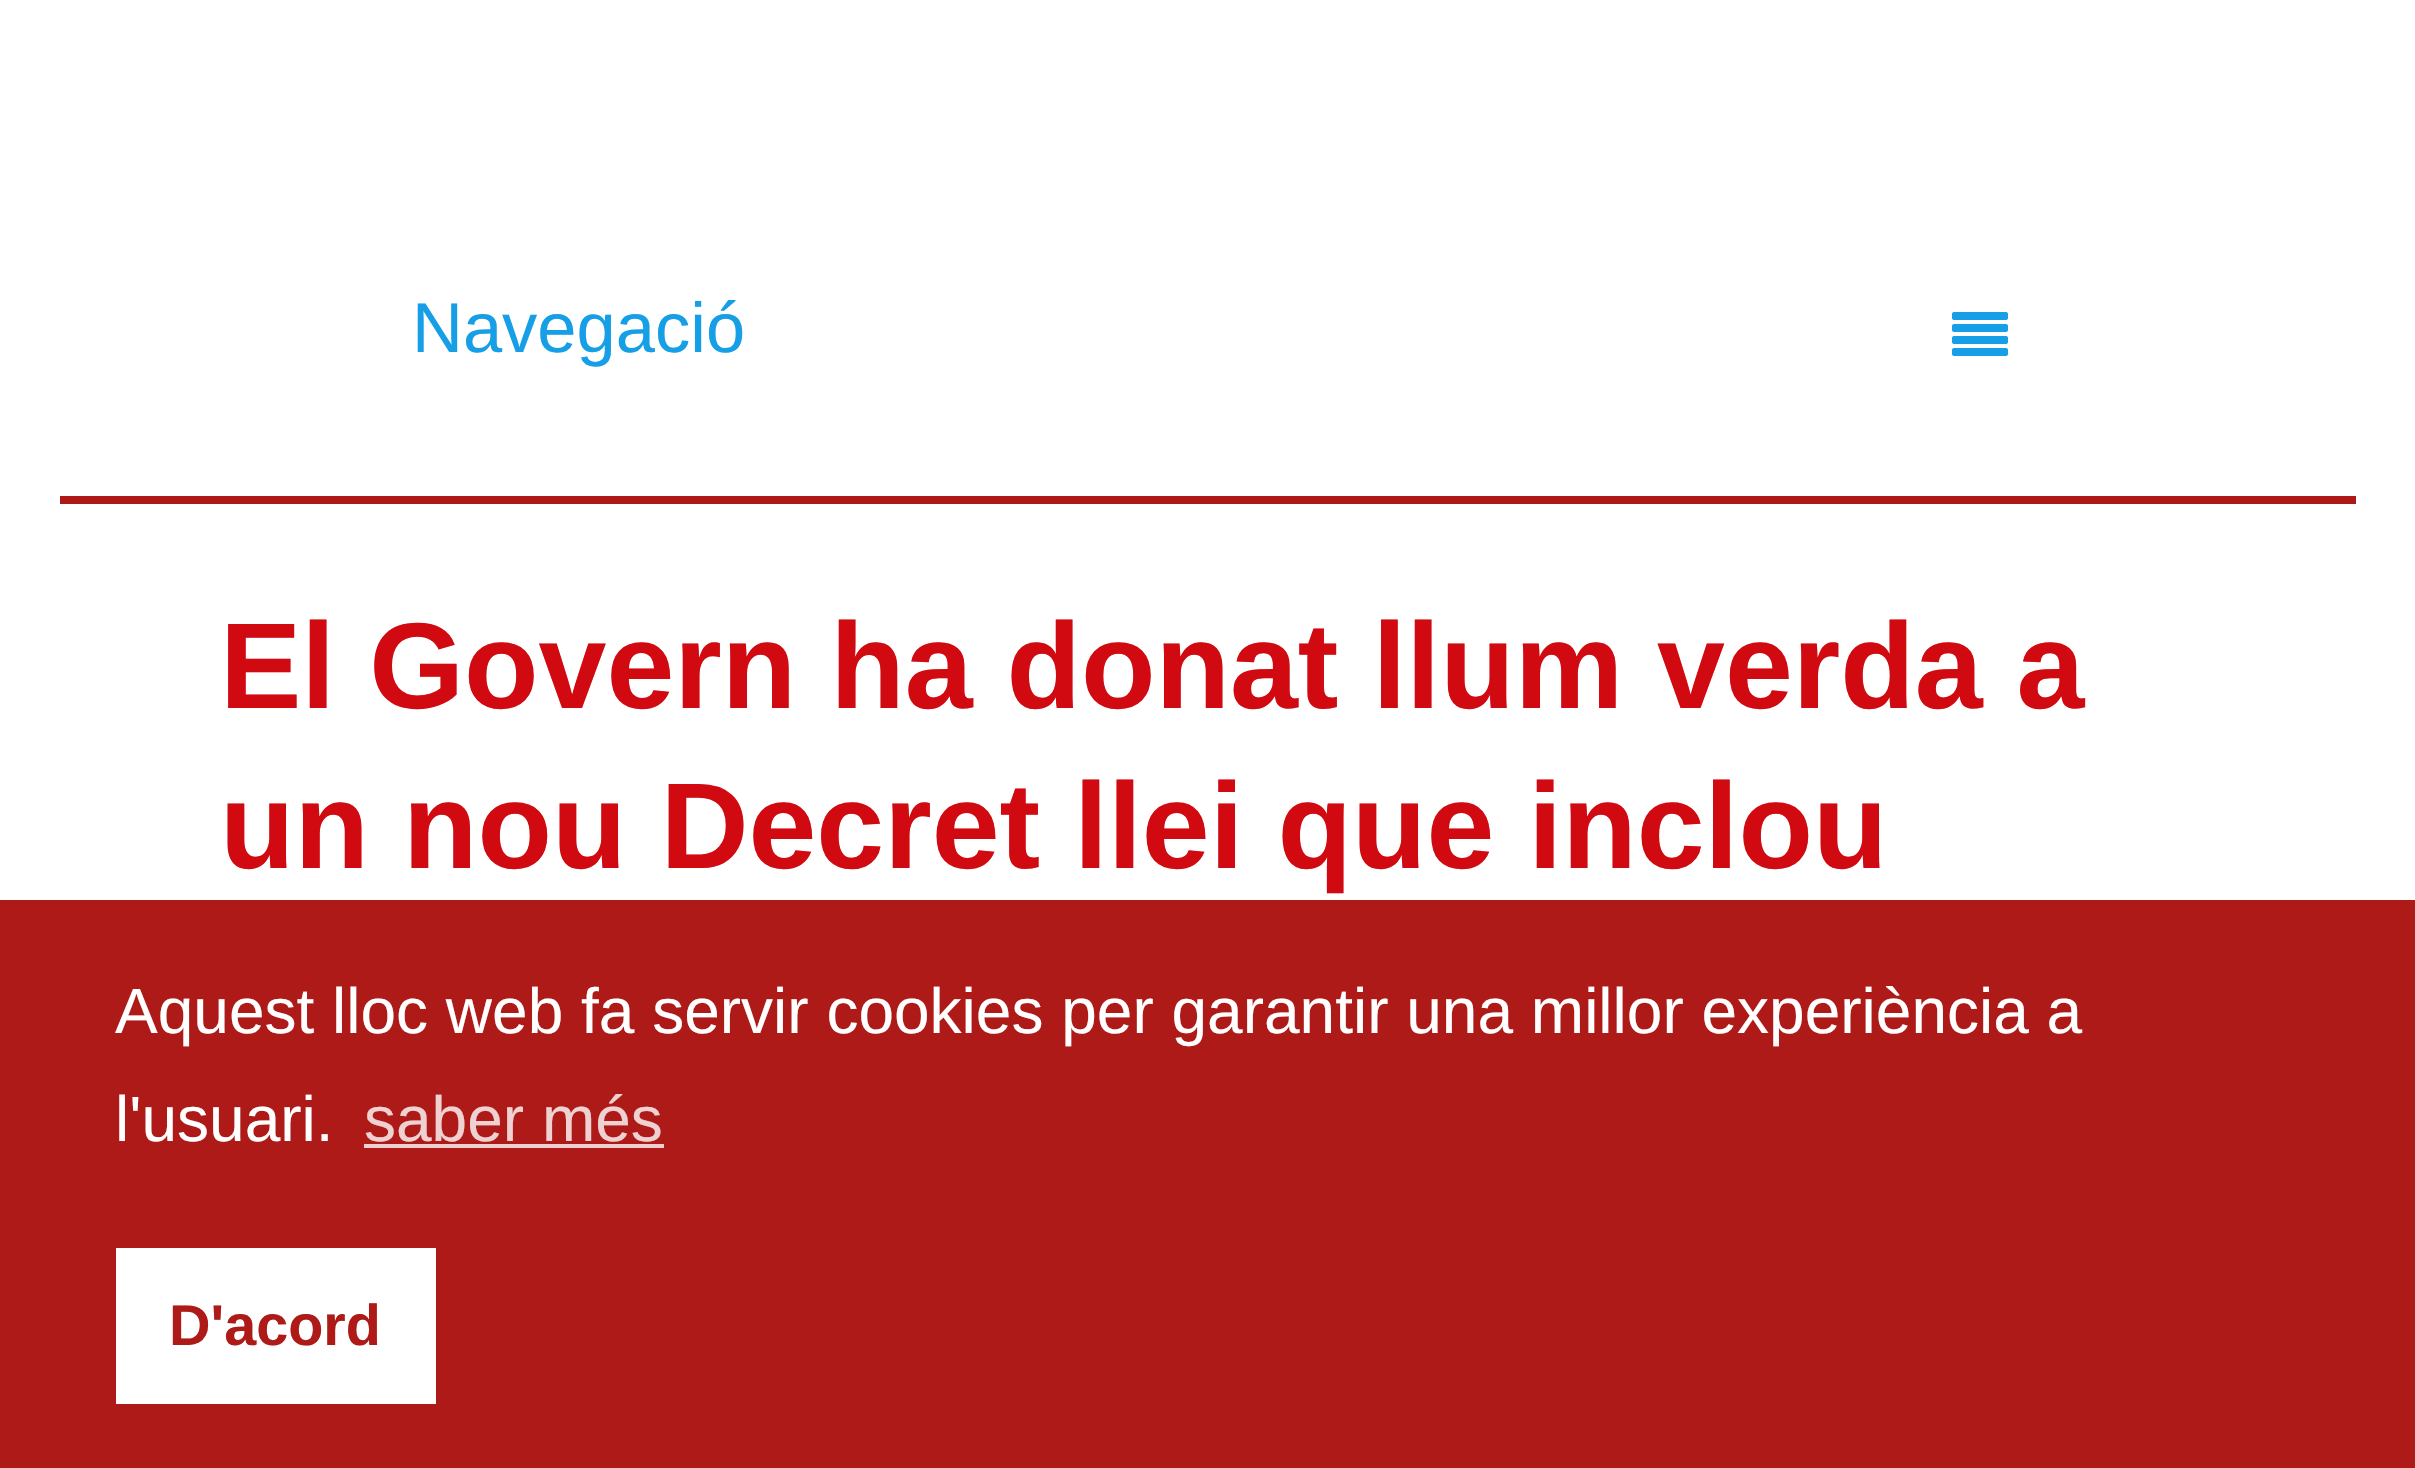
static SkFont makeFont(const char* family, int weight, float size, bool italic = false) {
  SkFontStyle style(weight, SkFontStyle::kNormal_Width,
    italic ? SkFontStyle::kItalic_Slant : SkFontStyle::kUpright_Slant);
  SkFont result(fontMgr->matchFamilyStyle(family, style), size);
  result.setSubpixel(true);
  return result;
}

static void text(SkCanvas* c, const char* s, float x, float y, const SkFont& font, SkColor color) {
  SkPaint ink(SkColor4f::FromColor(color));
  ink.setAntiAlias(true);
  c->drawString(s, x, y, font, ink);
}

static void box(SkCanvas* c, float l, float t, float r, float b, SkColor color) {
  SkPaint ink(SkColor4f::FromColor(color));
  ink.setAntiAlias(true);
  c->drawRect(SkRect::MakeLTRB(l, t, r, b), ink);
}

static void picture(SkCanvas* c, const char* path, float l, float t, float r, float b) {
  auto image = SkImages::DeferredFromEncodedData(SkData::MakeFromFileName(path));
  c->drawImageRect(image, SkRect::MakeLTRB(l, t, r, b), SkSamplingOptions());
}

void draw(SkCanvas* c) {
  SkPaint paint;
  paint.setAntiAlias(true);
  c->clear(0xffffffff);
  box(c, 60, 496, 2356, 504, 0xffad1917);
  SkFont face1 = makeFont("Liberation Sans", 400, 70.5f);
  text(c, "Navegació", 412, 352, face1, 0xff169fe6);
  picture(c, "img_01.png", 1952, 312, 2008, 356);
  SkFont face2 = makeFont("Liberation Sans", 700, 122);
  text(c, "El Govern ha donat llum verda a", 220, 708, face2, 0xffd10a11);
  text(c, "un nou Decret llei que inclou", 220, 868, face2, 0xffd10a11);
  box(c, 0, 900, 2415, 1468, 0xffad1a17);
  SkFont face3 = makeFont("Liberation Sans", 400, 64);
  text(c, "Aquest lloc web fa servir cookies per garantir una millor experiència a", 115, 1033, face3, 0xffffffff);
  text(c, "l'usuari.", 115, 1141, face3, 0xffffffff);
  text(c, "saber més", 364, 1141, face3, 0xffefd1d1);
  box(c, 364, 1144, 664, 1148, 0xffefd1d1);
  box(c, 116, 1248, 436, 1404, 0xffffffff);
  SkFont face4 = makeFont("Liberation Sans", 700, 57.5f);
  text(c, "D'acord", 169, 1345, face4, 0xffad1a17);
}
